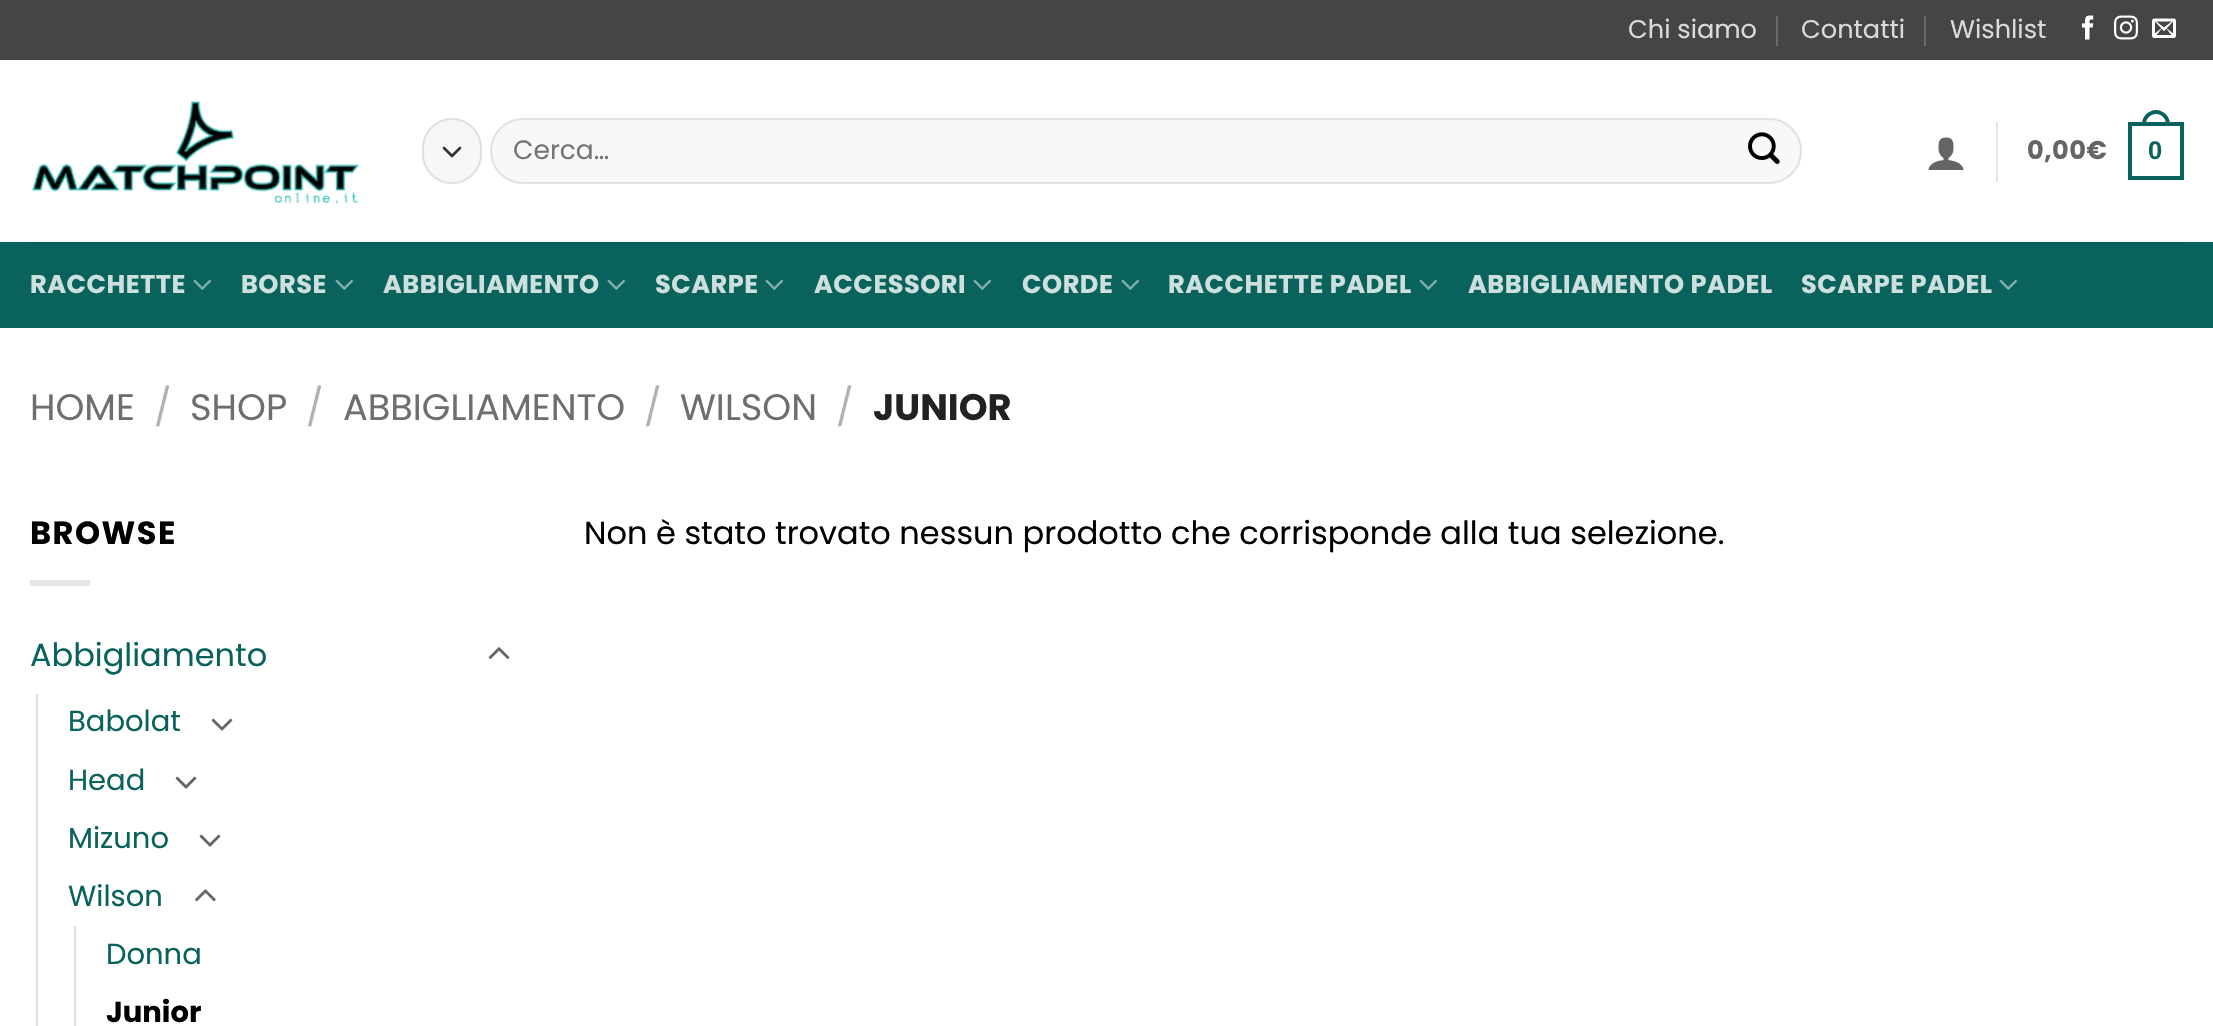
static SkFont makeFont(const char* family, int weight, float size, bool italic = false) {
  SkFontStyle style(weight, SkFontStyle::kNormal_Width,
    italic ? SkFontStyle::kItalic_Slant : SkFontStyle::kUpright_Slant);
  SkFont result(fontMgr->matchFamilyStyle(family, style), size);
  result.setSubpixel(true);
  return result;
}

static void text(SkCanvas* c, const char* s, float x, float y, const SkFont& font, SkColor color) {
  SkPaint ink(SkColor4f::FromColor(color));
  ink.setAntiAlias(true);
  c->drawString(s, x, y, font, ink);
}

static void spacedText(SkCanvas* c, const char* s, float x, float y, const SkFont& font, const SkPaint& ink, float letter, float word) {
  std::vector<SkGlyphID> glyphs(font.countText(s, strlen(s), SkTextEncoding::kUTF8));
  std::vector<float> xs(glyphs.size());
  font.textToGlyphs(s, strlen(s), SkTextEncoding::kUTF8, glyphs);
  font.getXPos(glyphs, xs, x);
  float extra = 0;
  for (size_t i = 0; i < glyphs.size(); i++) {
    xs[i] += extra;
    extra += letter + word * (glyphs[i] == font.unicharToGlyph(' '));
  }
  c->drawTextBlob(SkTextBlob::MakeFromPosHGlyphs(glyphs, xs, y, font), 0, 0, ink);
}

static void box(SkCanvas* c, float l, float t, float r, float b, SkColor color) {
  SkPaint ink(SkColor4f::FromColor(color));
  ink.setAntiAlias(true);
  c->drawRect(SkRect::MakeLTRB(l, t, r, b), ink);
}

static void roundBox(SkCanvas* c, float l, float t, float r, float b, float radius, SkColor color) {
  SkPaint ink(SkColor4f::FromColor(color));
  ink.setAntiAlias(true);
  c->drawRoundRect(SkRect::MakeLTRB(l, t, r, b), radius, radius, ink);
}

static void picture(SkCanvas* c, const char* path, float l, float t, float r, float b) {
  auto image = SkImages::DeferredFromEncodedData(SkData::MakeFromFileName(path));
  c->drawImageRect(image, SkRect::MakeLTRB(l, t, r, b), SkSamplingOptions());
}

void draw(SkCanvas* c) {
  SkPaint paint;
  paint.setAntiAlias(true);
  c->clear(0xffffffff);
  box(c, 0, 0, 2213, 60, 0xff454545);
  SkFont face1 = makeFont("Poppins", 400, 25.6f);
  text(c, "Chi siamo", 1628, 38, face1, 0xffdadada);
  box(c, 1776, 16, 1778, 46, 0xff6a6a6a);
  text(c, "Contatti", 1801, 38, face1, 0xffdadada);
  box(c, 1924, 16, 1926, 46, 0xff6a6a6a);
  text(c, "Wishlist", 1950, 38, face1, 0xffdadada);
  picture(c, "img_01.png", 2082, 15, 2094, 40);
  picture(c, "img_02.png", 2114, 15, 2138, 40);
  picture(c, "img_03.png", 2152, 18, 2176, 38);
  picture(c, "img_04.png", 32, 101, 359, 203);
  roundBox(c, 422, 118, 482, 184, 30, 0xfff7f7f7);
  paint.setStyle(SkPaint::kStroke_Style);
  paint.setStrokeWidth(2.7f);
  paint.setStrokeCap(SkPaint::kRound_Cap);
  paint.setStrokeJoin(SkPaint::kRound_Join);
  paint.setColor(0xff333333);
  c->drawPath(SkPathBuilder().moveTo(444, 148).lineTo(452, 156).lineTo(460, 148).detach(), paint);
  paint.setStrokeWidth(2);
  paint.setStrokeCap(SkPaint::kButt_Cap);
  paint.setStrokeJoin(SkPaint::kMiter_Join);
  paint.setColor(0x17000000);
  c->drawRoundRect(SkRect::MakeLTRB(423, 119, 481, 183), 29, 29, paint);
  roundBox(c, 490, 118, 1802, 184, 33, 0xfff8f8f8);
  c->drawRoundRect(SkRect::MakeLTRB(491, 119, 1801, 183), 32, 32, paint);
  SkFont face2 = makeFont("Poppins", 400, 26.5f);
  text(c, "Cerca…", 513, 159, face2, 0xff757575);
  picture(c, "img_05.png", 1748, 132, 1780, 164);
  picture(c, "img_06.png", 1928, 137, 1964, 170);
  box(c, 1996, 122, 1998, 182, 0xffe6e6e6);
  SkFont face3 = makeFont("Poppins", 700, 25.6f);
  paint.setStyle(SkPaint::kFill_Style);
  paint.setColor(0xff656565);
  spacedText(c, "0,00€", 2027, 159, face3, paint, 0.5f, 0);
  paint.setStyle(SkPaint::kStroke_Style);
  paint.setStrokeWidth(4);
  paint.setColor(0xff09625c);
  c->drawRect(SkRect::MakeLTRB(2130, 124, 2182, 178), paint);
  paint.setStyle(SkPaint::kFill_Style);
  c->drawPath(SkPathBuilder(SkPathFillType::kEvenOdd).moveTo(2156, 110).cubicTo(2163.5f, 110, 2170, 116.5f, 2170, 124).lineTo(2170, 126).lineTo(2142, 126).lineTo(2142, 124).cubicTo(2142, 116.5f, 2148.5f, 110, 2156, 110).close().moveTo(2156, 114).cubicTo(2161.5f, 114, 2166, 118.5f, 2166, 124).lineTo(2166, 126).lineTo(2146, 126).lineTo(2146, 124).cubicTo(2146, 118.5f, 2150.5f, 114, 2156, 114).close().detach(), paint);
  SkFont face4 = makeFont("Liberation Sans", 700, 25.6f);
  spacedText(c, "0", 2148, 159, face4, paint, 0.5f, 0);
  box(c, 0, 242, 2213, 328, 0xff09625c);
  box(c, 30, 242, 2184, 244, 0xff085853);
  paint.setColor(0xffcee0de);
  spacedText(c, "RACCHETTE", 30, 293, face3, paint, 0.5f, 0);
  picture(c, "img_07.png", 193, 279, 212, 290);
  spacedText(c, "BORSE", 241, 293, face3, paint, 0.5f, 0);
  picture(c, "img_07.png", 335, 279, 354, 290);
  spacedText(c, "ABBIGLIAMENTO", 383, 293, face3, paint, 0.5f, 0);
  picture(c, "img_07.png", 607, 279, 626, 290);
  spacedText(c, "SCARPE", 655, 293, face3, paint, 0.5f, 0);
  picture(c, "img_07.png", 765, 279, 784, 290);
  spacedText(c, "ACCESSORI", 814, 293, face3, paint, 0.5f, 0);
  picture(c, "img_07.png", 973, 279, 992, 290);
  spacedText(c, "CORDE", 1022, 293, face3, paint, 0.5f, 0);
  picture(c, "img_07.png", 1121, 279, 1140, 290);
  spacedText(c, "RACCHETTE PADEL", 1168, 293, face3, paint, 0.5f, 0);
  picture(c, "img_07.png", 1419, 279, 1438, 290);
  spacedText(c, "ABBIGLIAMENTO PADEL", 1468, 293, face3, paint, 0.5f, 0);
  spacedText(c, "SCARPE PADEL", 1801, 293, face3, paint, 0.5f, 0);
  picture(c, "img_07.png", 1999, 279, 2018, 290);
  SkFont face5 = makeFont("Poppins", 400, 36.75f);
  text(c, "HOME", 30, 420, face5, 0xff6e6e6e);
  text(c, "/", 154, 420, face5, 0xffb2b2b2);
  text(c, "SHOP", 190, 420, face5, 0xff6e6e6e);
  text(c, "/", 306, 420, face5, 0xffb2b2b2);
  text(c, "ABBIGLIAMENTO", 343, 420, face5, 0xff6e6e6e);
  text(c, "/", 644, 420, face5, 0xffb2b2b2);
  text(c, "WILSON", 680, 420, face5, 0xff6e6e6e);
  text(c, "/", 836, 420, face5, 0xffb2b2b2);
  SkFont face6 = makeFont("Poppins", 700, 36.75f);
  text(c, "JUNIOR", 873, 420, face6, 0xff222222);
  SkFont face7 = makeFont("Poppins", 700, 32);
  paint.setColor(0xff000000);
  spacedText(c, "BROWSE", 30, 544, face7, paint, 1.5f, 0);
  box(c, 30, 580, 90, 586, 0xffe6e6e6);
  SkFont face8 = makeFont("Poppins", 400, 32);
  text(c, "Abbigliamento", 30, 666, face8, 0xff09625c);
  picture(c, "img_08.png", 488, 647, 510, 659);
  box(c, 36, 694, 38, 1026, 0xffdddddd);
  SkFont face9 = makeFont("Poppins", 400, 29);
  text(c, "Babolat", 68, 731, face9, 0xff09625c);
  picture(c, "img_09.png", 211, 718, 233, 731);
  text(c, "Head", 68, 790, face9, 0xff09625c);
  picture(c, "img_09.png", 175, 776, 197, 789);
  text(c, "Mizuno", 68, 848, face9, 0xff09625c);
  picture(c, "img_09.png", 199, 834, 221, 847);
  text(c, "Wilson", 68, 906, face9, 0xff09625c);
  picture(c, "img_10.png", 195, 889, 216, 902);
  box(c, 74, 926, 76, 1026, 0xffdddddd);
  text(c, "Donna", 106, 964, face9, 0xff09625c);
  SkFont face10 = makeFont("Poppins", 700, 29);
  text(c, "Junior", 106, 1022, face10, 0xff000000);
  text(c, "Non è stato trovato nessun prodotto che corrisponde alla tua selezione.", 584, 544, face8, 0xff000000);
}
